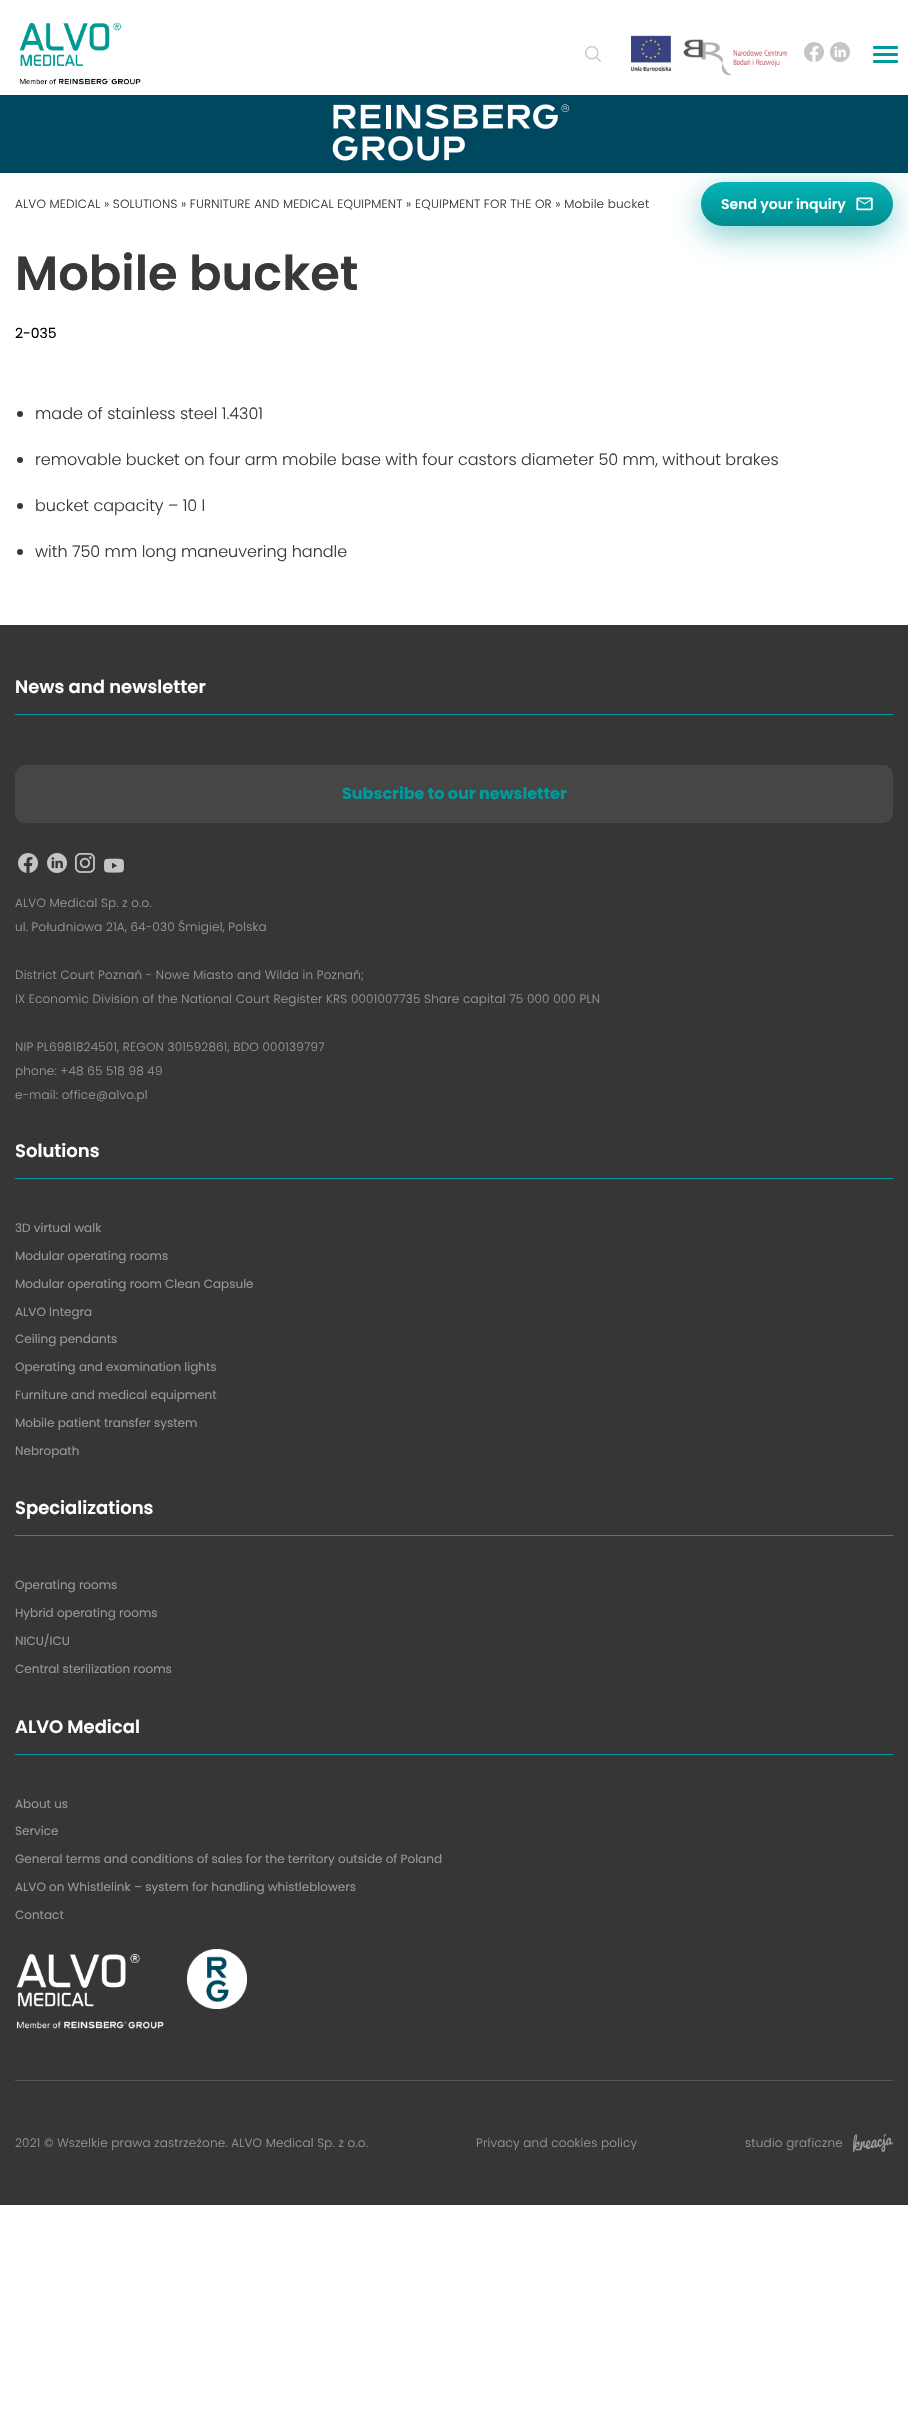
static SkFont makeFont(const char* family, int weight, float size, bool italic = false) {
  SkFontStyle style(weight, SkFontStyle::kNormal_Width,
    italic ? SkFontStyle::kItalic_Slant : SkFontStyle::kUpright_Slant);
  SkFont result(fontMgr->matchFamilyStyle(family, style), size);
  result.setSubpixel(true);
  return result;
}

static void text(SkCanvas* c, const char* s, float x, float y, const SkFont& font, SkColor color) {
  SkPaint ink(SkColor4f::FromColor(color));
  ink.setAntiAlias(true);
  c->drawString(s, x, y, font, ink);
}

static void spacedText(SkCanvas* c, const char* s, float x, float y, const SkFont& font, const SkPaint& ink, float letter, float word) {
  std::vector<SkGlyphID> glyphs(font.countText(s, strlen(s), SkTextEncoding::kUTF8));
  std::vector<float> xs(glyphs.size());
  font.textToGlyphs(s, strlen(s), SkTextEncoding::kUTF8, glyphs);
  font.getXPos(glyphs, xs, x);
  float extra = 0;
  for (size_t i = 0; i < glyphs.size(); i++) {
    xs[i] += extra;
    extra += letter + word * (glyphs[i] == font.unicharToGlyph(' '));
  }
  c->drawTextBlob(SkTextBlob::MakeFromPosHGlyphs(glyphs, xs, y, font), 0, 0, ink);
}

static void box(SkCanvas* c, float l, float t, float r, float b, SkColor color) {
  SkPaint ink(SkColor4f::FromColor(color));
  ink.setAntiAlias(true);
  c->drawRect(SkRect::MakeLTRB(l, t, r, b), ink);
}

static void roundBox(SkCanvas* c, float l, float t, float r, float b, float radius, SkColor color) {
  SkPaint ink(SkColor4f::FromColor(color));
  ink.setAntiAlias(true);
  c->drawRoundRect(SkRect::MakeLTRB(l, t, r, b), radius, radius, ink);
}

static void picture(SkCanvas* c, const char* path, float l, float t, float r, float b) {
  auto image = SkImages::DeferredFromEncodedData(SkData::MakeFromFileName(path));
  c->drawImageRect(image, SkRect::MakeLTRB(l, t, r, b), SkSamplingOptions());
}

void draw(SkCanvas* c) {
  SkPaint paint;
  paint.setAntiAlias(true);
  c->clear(0xffffffff);
  picture(c, "img_01.png", 19, 22, 141, 85);
  picture(c, "img_02.png", 585, 46, 601, 62);
  picture(c, "img_03.png", 631, 35, 671, 72);
  picture(c, "img_04.png", 683, 39, 788, 75);
  picture(c, "img_05.png", 804, 42, 824, 62);
  picture(c, "img_06.png", 830, 42, 850, 62);
  roundBox(c, 873, 46, 898, 49, 1, 0xff009a9d);
  roundBox(c, 873, 53, 898, 56, 1, 0xff009a9d);
  roundBox(c, 873, 60, 898, 63, 1, 0xff009a9d);
  paint.setColor(0x7a009a9e);
  paint.setMaskFilter(SkMaskFilter::MakeBlur(kNormal_SkBlurStyle, 15.5f));
  c->drawRoundRect(SkRect::MakeLTRB(701, 191, 893, 235), 22, 22, paint);
  paint.setMaskFilter(nullptr);
  box(c, 0, 95, 908, 173, 0xff004860);
  picture(c, "img_07.png", 332, 104, 570, 161);
  SkFont face1 = makeFont("Poppins", 300, 12);
  paint.setColor(0xff383838);
  spacedText(c, "ALVO MEDICAL » SOLUTIONS » FURNITURE AND MEDICAL EQUIPMENT » EQUIPMENT FOR THE OR » Mobile bucket", 15, 208, face1, paint, 0.2f, 0);
  {
    const SkColor colors[] = {0xff06b4b7, 0xff018c8e};
    const float stops[] = {0, 1};
    const SkPoint ends[] = {{797, 182}, {797, 226}};
    paint.setShader(SkGradientShader::MakeLinear(ends, colors, stops, 2, SkTileMode::kClamp));
    paint.setAlpha(255);
  }
  c->drawRoundRect(SkRect::MakeLTRB(701, 182, 893, 226), 22, 22, paint);
  SkFont face2 = makeFont("Poppins", 600, 14);
  text(c, "Send your inquiry", 721, 209, face2, 0xffffffff);
  picture(c, "img_08.png", 856, 197, 873, 211);
  SkFont face3 = makeFont("Poppins", 600, 48);
  text(c, "Mobile bucket", 15, 290, face3, 0xff383838);
  SkFont face4 = makeFont("Poppins", 400, 14);
  text(c, "2-035", 15, 338, face4, 0xff000000);
  paint.setShader(nullptr);
  paint.setColor(0xff383838);
  c->drawCircle(20, 414, 3, paint);
  SkFont face5 = makeFont("Poppins", 300, 16);
  text(c, "made of stainless steel 1.4301", 35, 419, face5, 0xff383838);
  c->drawCircle(20, 460, 3, paint);
  text(c, "removable bucket on four arm mobile base with four castors diameter 50 mm, without brakes", 35, 465, face5, 0xff383838);
  c->drawCircle(20, 506, 3, paint);
  text(c, "bucket capacity – 10 l", 35, 511, face5, 0xff383838);
  c->drawCircle(20, 552, 3, paint);
  text(c, "with 750 mm long maneuvering handle", 35, 557, face5, 0xff383838);
  box(c, 0, 625, 908, 2205, 0xff363636);
  box(c, 15, 714, 893, 715, 0xff009a9d);
  SkFont face6 = makeFont("Poppins", 600, 18);
  text(c, "News and newsletter", 15, 693, face6, 0xffffffff);
  roundBox(c, 15, 765, 893, 823, 10, 0xff464646);
  SkFont face7 = makeFont("Poppins", 700, 16);
  text(c, "Subscribe to our newsletter", 342, 799, face7, 0xff009a9d);
  picture(c, "img_09.png", 18, 853, 38, 873);
  picture(c, "img_10.png", 47, 853, 67, 873);
  picture(c, "img_11.png", 75, 853, 95, 873);
  picture(c, "img_12.png", 104, 858, 124, 873);
  paint.setColor(0xff989898);
  spacedText(c, "ALVO Medical Sp. z o.o.", 15, 907, face1, paint, 0.2f, 0);
  spacedText(c, "ul. Południowa 21A, 64-030 Śmigiel, Polska", 15, 931, face1, paint, 0.2f, 0);
  spacedText(c, "District Court Poznań - Nowe Miasto and Wilda in Poznań;", 15, 979, face1, paint, 0.2f, 0);
  spacedText(c, "IX Economic Division of the National Court Register KRS 0001007735 Share capital 75 000 000 PLN", 15, 1003, face1, paint, 0.2f, 0);
  spacedText(c, "NIP PL6981824501, REGON 301592861, BDO 000139797", 15, 1051, face1, paint, 0.2f, 0);
  spacedText(c, "phone: +48 65 518 98 49", 15, 1075, face1, paint, 0.2f, 0);
  spacedText(c, "e-mail: office@alvo.pl", 15, 1099, face1, paint, 0.2f, 0);
  box(c, 15, 1178, 893, 1179, 0xff009a9d);
  text(c, "Solutions", 15, 1157, face6, 0xffffffff);
  SkFont face8 = makeFont("Poppins", 400, 12);
  text(c, "3D virtual walk", 15, 1232, face8, 0xff989898);
  text(c, "Modular operating rooms", 15, 1260, face8, 0xff989898);
  text(c, "Modular operating room Clean Capsule", 15, 1288, face8, 0xff989898);
  text(c, "ALVO Integra", 15, 1316, face8, 0xff989898);
  text(c, "Ceiling pendants", 15, 1343, face8, 0xff989898);
  text(c, "Operating and examination lights", 15, 1371, face8, 0xff989898);
  text(c, "Furniture and medical equipment", 15, 1399, face8, 0xff989898);
  text(c, "Mobile patient transfer system", 15, 1427, face8, 0xff989898);
  text(c, "Nebropath", 15, 1455, face8, 0xff989898);
  box(c, 15, 1535, 893, 1536, 0xff009a9d);
  text(c, "Specializations", 15, 1514, face6, 0xffffffff);
  text(c, "Operating rooms", 15, 1589, face8, 0xff989898);
  text(c, "Hybrid operating rooms", 15, 1617, face8, 0xff989898);
  text(c, "NICU/ICU", 15, 1645, face8, 0xff989898);
  text(c, "Central sterilization rooms", 15, 1673, face8, 0xff989898);
  box(c, 15, 1754, 893, 1755, 0xff009a9d);
  text(c, "ALVO Medical", 15, 1733, face6, 0xffffffff);
  text(c, "About us", 15, 1808, face8, 0xff989898);
  text(c, "Service", 15, 1835, face8, 0xff989898);
  text(c, "General terms and conditions of sales for the territory outside of Poland", 15, 1863, face8, 0xff989898);
  text(c, "ALVO on Whistlelink – system for handling whistleblowers", 15, 1891, face8, 0xff989898);
  text(c, "Contact", 15, 1919, face8, 0xff989898);
  picture(c, "img_13.png", 16, 1954, 164, 2029);
  picture(c, "img_14.png", 187, 1949, 247, 2009);
  box(c, 15, 2080, 893, 2081, 0xff565656);
  spacedText(c, "2021 © Wszelkie prawa zastrzeżone. ALVO Medical Sp. z o.o.", 15, 2147, face1, paint, 0.2f, 0);
  spacedText(c, "Privacy and cookies policy", 476, 2147, face1, paint, 0.2f, 0);
  spacedText(c, "studio graficzne", 745, 2147, face1, paint, 0.2f, 0);
  picture(c, "img_15.png", 853, 2134, 893, 2152);
}
